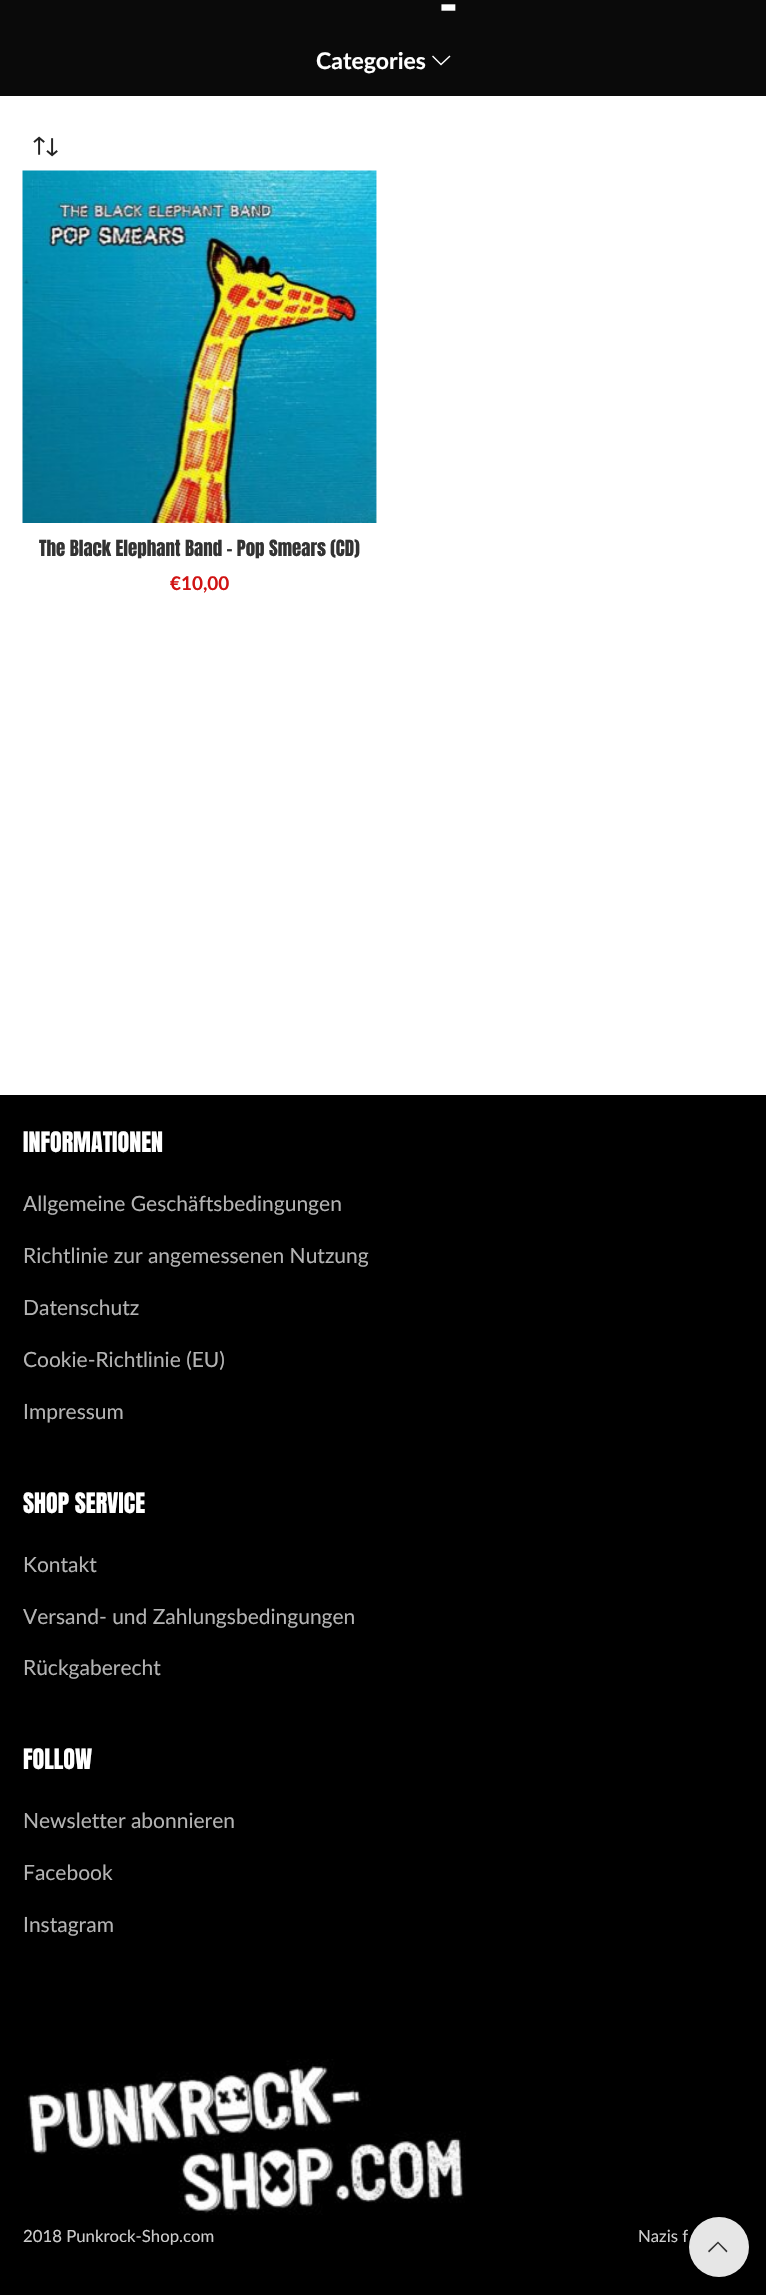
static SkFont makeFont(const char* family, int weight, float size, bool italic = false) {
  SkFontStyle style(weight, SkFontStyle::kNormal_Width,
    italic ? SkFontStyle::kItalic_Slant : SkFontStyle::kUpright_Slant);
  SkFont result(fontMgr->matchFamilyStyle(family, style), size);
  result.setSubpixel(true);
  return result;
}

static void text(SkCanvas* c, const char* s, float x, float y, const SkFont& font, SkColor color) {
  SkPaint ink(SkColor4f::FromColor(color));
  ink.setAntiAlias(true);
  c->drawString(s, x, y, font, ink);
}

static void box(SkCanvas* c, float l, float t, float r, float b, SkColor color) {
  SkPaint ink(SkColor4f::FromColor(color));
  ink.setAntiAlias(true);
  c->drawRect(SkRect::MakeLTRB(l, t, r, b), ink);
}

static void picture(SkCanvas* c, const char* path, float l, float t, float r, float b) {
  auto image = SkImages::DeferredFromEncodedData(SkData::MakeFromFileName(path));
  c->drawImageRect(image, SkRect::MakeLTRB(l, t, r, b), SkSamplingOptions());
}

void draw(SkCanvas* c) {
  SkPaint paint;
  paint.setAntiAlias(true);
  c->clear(0xffffffff);
  box(c, 0, 0, 766, 96, 0xff0a0a0a);
  SkFont face1 = makeFont("Anton", 400, 54);
  text(c, "-", 440, 24, face1, 0xffffffff);
  SkFont face2 = makeFont("Lato", 700, 23);
  text(c, "Categories", 316, 69, face2, 0xffffffff);
  paint.setColor(0xffffffff);
  c->drawPath(SkPathBuilder().moveTo(449.5f, 55.5f).lineTo(441, 63.5f).lineTo(433, 55.5f).lineTo(432, 56.5f).lineTo(441, 65.5f).lineTo(450.5f, 56.5f).close().detach(), paint);
  picture(c, "img_01.png", 33, 136, 58, 157);
  picture(c, "img_02.png", 22, 170, 377, 523);
  SkFont face3 = makeFont("Anton", 400, 18.9f);
  text(c, "The Black Elephant Band – Pop Smears (CD)", 39, 556, face3, 0xff333333);
  SkFont face4 = makeFont("Lato", 700, 18.9f);
  text(c, "€10,00", 170, 590, face4, 0xffd11414);
  box(c, 0, 1095, 766, 2295, 0xff000000);
  SkFont face5 = makeFont("Anton", 400, 24);
  text(c, "INFORMATIONEN", 23, 1152, face5, 0xffffffff);
  SkFont face6 = makeFont("Lato", 400, 21);
  text(c, "Allgemeine Geschäftsbedingungen", 23, 1211, face6, 0xffb3b3b3);
  text(c, "Richtlinie zur angemessenen Nutzung", 23, 1263, face6, 0xffb3b3b3);
  text(c, "Datenschutz", 23, 1315, face6, 0xffb3b3b3);
  text(c, "Cookie-Richtlinie (EU)", 23, 1367, face6, 0xffb3b3b3);
  text(c, "Impressum", 23, 1419, face6, 0xffb3b3b3);
  text(c, "SHOP SERVICE", 23, 1513, face5, 0xffffffff);
  text(c, "Kontakt", 23, 1572, face6, 0xffb3b3b3);
  text(c, "Versand- und Zahlungsbedingungen", 23, 1624, face6, 0xffb3b3b3);
  text(c, "Rückgaberecht", 23, 1675, face6, 0xffb3b3b3);
  text(c, "FOLLOW", 23, 1769, face5, 0xffffffff);
  text(c, "Newsletter abonnieren", 23, 1828, face6, 0xffb3b3b3);
  text(c, "Facebook", 23, 1880, face6, 0xffb3b3b3);
  text(c, "Instagram", 23, 1932, face6, 0xffb3b3b3);
  picture(c, "img_03.png", 24, 2059, 466, 2215);
  SkFont face7 = makeFont("Lato", 400, 16.75f);
  text(c, "2018 Punkrock-Shop.com", 23, 2242, face7, 0xffcccccc);
  text(c, "Nazis f", 638, 2242, face7, 0xffcccccc);
  paint.setColor(0xe6ffffff);
  c->drawCircle(719, 2247, 30, paint);
  paint.setColor(0xff333333);
  c->drawPath(SkPathBuilder().moveTo(726.5f, 2252.5f).lineTo(727.5f, 2251).lineTo(718, 2241.5f).lineTo(708, 2251).lineTo(709, 2252.5f).lineTo(718, 2243.5f).close().detach(), paint);
}
